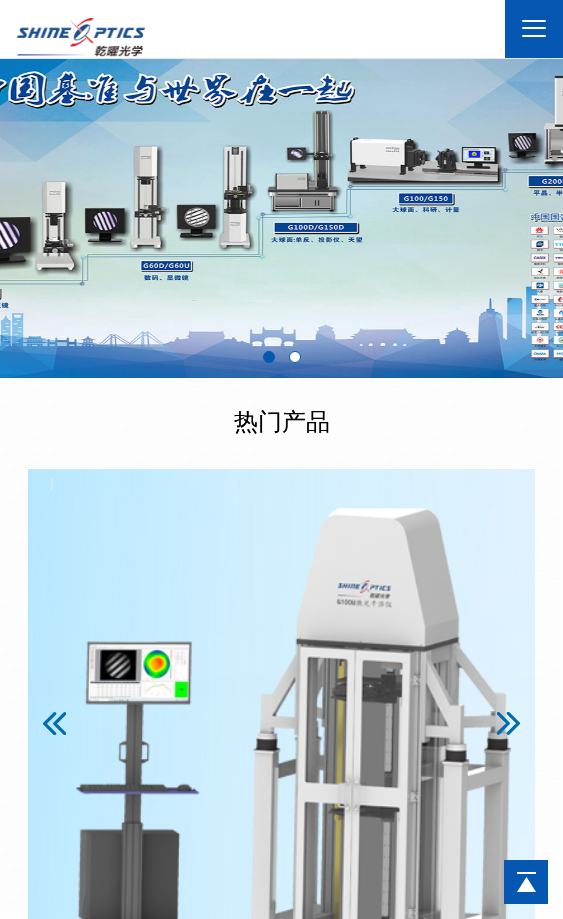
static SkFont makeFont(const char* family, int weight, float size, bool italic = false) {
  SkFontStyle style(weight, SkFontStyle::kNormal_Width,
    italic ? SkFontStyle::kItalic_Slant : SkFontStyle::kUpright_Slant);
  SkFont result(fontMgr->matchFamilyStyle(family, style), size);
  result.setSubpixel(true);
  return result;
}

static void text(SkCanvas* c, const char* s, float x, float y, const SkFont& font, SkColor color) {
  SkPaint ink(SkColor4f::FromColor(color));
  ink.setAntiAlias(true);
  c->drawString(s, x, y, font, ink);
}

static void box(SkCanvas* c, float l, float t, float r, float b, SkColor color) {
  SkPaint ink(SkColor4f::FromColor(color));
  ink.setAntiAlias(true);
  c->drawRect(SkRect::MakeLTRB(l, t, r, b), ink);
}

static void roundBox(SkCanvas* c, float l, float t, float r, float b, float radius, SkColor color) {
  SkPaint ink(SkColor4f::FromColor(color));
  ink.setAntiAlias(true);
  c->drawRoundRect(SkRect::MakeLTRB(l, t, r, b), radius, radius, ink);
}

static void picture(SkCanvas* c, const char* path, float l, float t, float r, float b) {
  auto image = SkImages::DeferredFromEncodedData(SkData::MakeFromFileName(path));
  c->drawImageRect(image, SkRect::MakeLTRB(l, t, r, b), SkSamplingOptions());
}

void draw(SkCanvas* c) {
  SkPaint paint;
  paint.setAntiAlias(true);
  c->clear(0xffffffff);
  picture(c, "img_01.png", 1, 378, 562, 918);
  box(c, 505, 0, 563, 58, 0xff0657b2);
  roundBox(c, 522, 20, 546, 22, 1, 0xffffffff);
  roundBox(c, 522, 27, 546, 29, 1, 0xffffffff);
  roundBox(c, 522, 35, 546, 37, 1, 0xffffffff);
  box(c, 0, 58, 563, 59, 0xffe5e5e5);
  picture(c, "img_02.png", 16, 18, 145, 57);
  picture(c, "img_03.png", 0, 59, 563, 378);
  paint.setColor(0xff0657b2);
  c->drawCircle(269, 357, 5.5f, paint);
  paint.setStyle(SkPaint::kStroke_Style);
  paint.setStrokeWidth(1);
  c->drawCircle(269, 357, 5.5f, paint);
  paint.setStyle(SkPaint::kFill_Style);
  paint.setColor(0xffffffff);
  c->drawCircle(295, 357, 5.5f, paint);
  paint.setStyle(SkPaint::kStroke_Style);
  paint.setColor(0xff0657b2);
  c->drawCircle(295, 357, 5.5f, paint);
  SkFont face1 = makeFont("WenQuanYi Zen Hei", 500, 24);
  text(c, "热门产品", 234, 430, face1, 0xff000000);
  picture(c, "img_04.png", 28, 469, 535, 919);
  picture(c, "img_05.png", 43, 712, 66, 735);
  picture(c, "img_06.png", 497, 712, 520, 735);
  box(c, 504, 860, 548, 904, 0xff0657b2);
  picture(c, "img_07.png", 517, 872, 536, 892);
}
